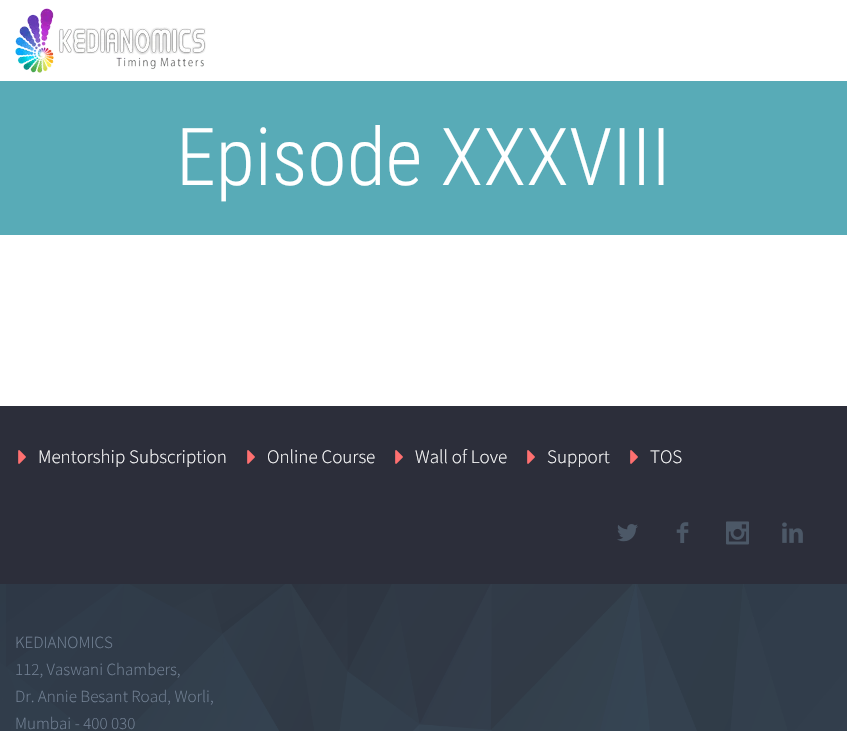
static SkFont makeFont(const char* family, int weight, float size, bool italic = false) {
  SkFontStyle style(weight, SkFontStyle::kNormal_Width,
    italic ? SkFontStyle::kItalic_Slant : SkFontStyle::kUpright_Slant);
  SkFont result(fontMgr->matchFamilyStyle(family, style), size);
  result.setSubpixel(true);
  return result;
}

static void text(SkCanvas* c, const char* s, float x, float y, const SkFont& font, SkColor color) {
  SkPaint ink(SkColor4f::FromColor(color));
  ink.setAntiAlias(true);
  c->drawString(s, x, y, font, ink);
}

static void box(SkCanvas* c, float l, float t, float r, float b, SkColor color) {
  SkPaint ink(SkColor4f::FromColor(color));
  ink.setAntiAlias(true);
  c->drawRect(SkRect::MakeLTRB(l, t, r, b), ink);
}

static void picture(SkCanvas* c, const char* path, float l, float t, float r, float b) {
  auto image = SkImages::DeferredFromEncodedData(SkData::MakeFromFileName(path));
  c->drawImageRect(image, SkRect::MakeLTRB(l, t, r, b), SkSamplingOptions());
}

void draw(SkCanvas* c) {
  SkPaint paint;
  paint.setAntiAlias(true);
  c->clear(0xffffffff);
  picture(c, "img_01.png", 15, 8, 206, 73);
  box(c, 0, 81, 847, 235, 0xff58abb7);
  SkFont face1 = makeFont("Roboto Condensed", 300, 80);
  text(c, "Episode XXXVIII", 176, 185, face1, 0xffffffff);
  box(c, 0, 406, 847, 584, 0xff2c2e3a);
  picture(c, "img_02.png", 18, 450, 26, 464);
  SkFont face2 = makeFont("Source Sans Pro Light", 300, 19);
  text(c, "Mentorship Subscription", 38, 463, face2, 0xffffffff);
  picture(c, "img_02.png", 247, 450, 255, 464);
  text(c, "Online Course", 267, 463, face2, 0xffffffff);
  picture(c, "img_02.png", 395, 450, 403, 464);
  text(c, "Wall of Love", 415, 463, face2, 0xffffffff);
  picture(c, "img_02.png", 527, 450, 535, 464);
  text(c, "Support", 547, 463, face2, 0xffffffff);
  picture(c, "img_02.png", 630, 450, 638, 464);
  text(c, "TOS", 650, 463, face2, 0xffffffff);
  picture(c, "img_03.png", 617, 524, 638, 542);
  picture(c, "img_04.png", 676, 522, 689, 543);
  picture(c, "img_05.png", 726, 521, 749, 545);
  picture(c, "img_06.png", 782, 522, 803, 543);
  picture(c, "img_07.png", 0, 584, 847, 731);
  SkFont face3 = makeFont("Source Sans Pro Light", 300, 17);
  text(c, "KEDIANOMICS", 15, 648, face3, 0xff728194);
  text(c, "112, Vaswani Chambers,", 15, 675, face3, 0xff728194);
  text(c, "Dr. Annie Besant Road, Worli,", 15, 702, face3, 0xff728194);
  text(c, "Mumbai - 400 030", 15, 729, face3, 0xff728194);
}
